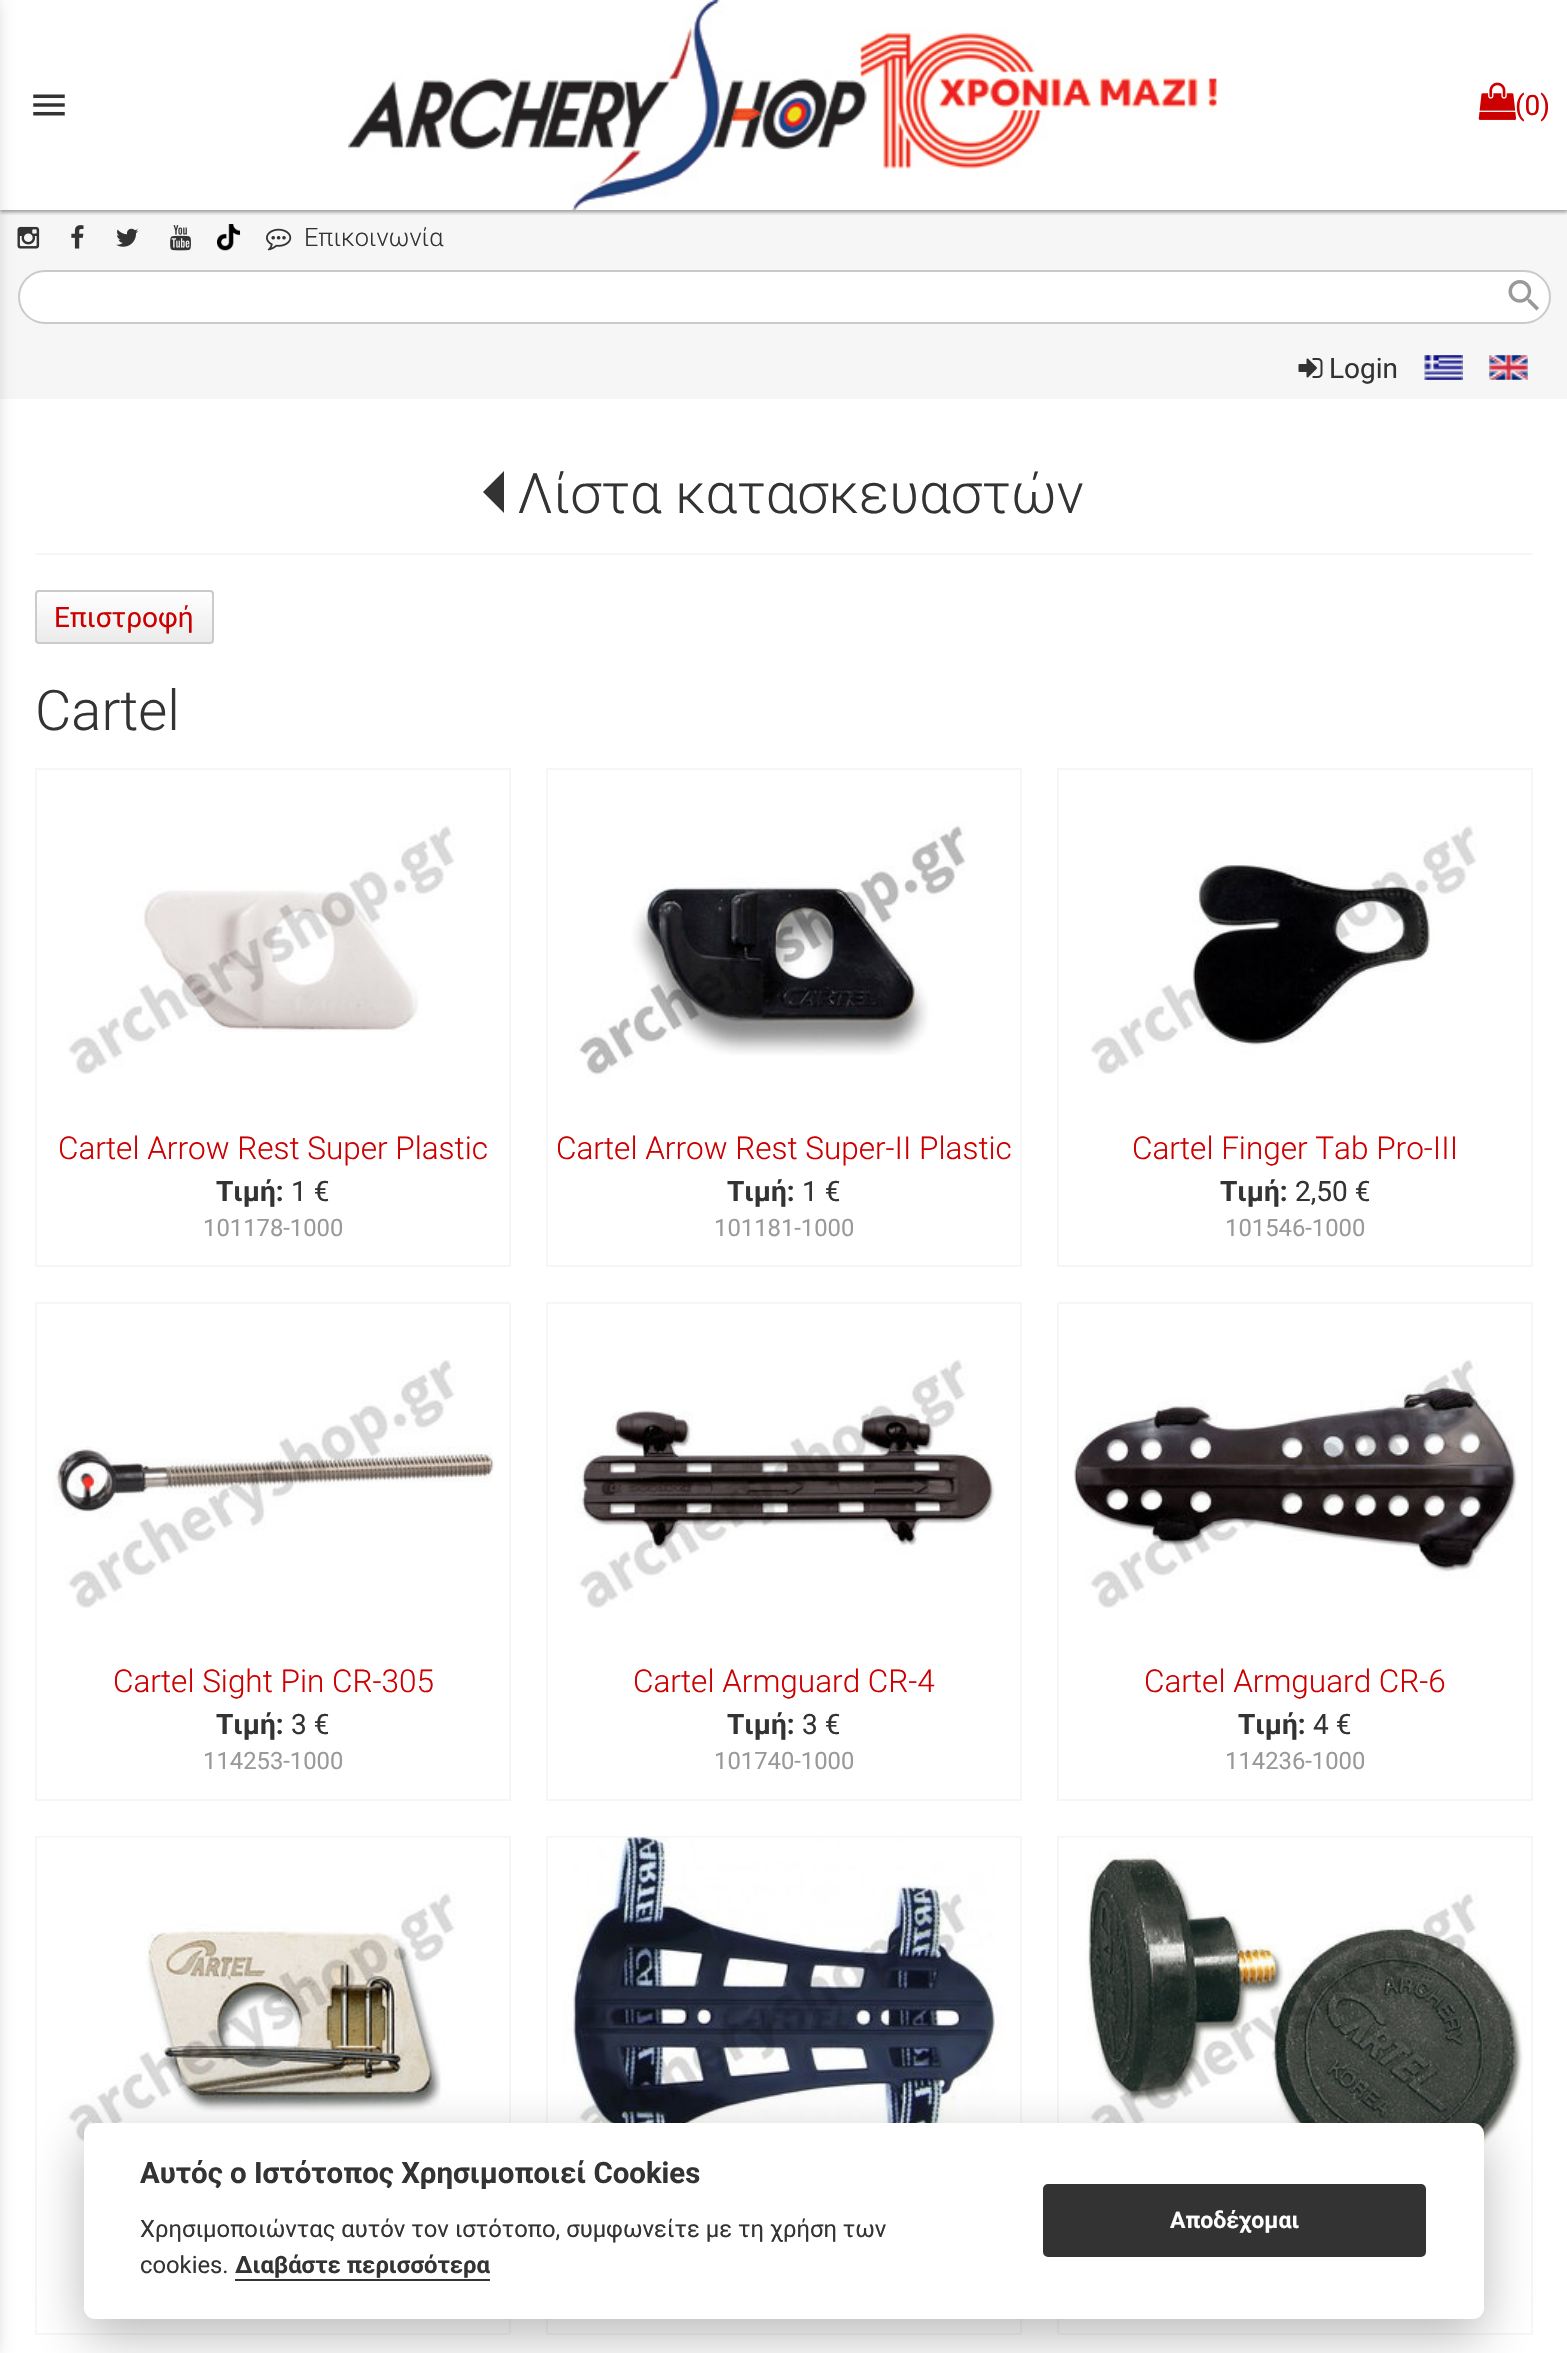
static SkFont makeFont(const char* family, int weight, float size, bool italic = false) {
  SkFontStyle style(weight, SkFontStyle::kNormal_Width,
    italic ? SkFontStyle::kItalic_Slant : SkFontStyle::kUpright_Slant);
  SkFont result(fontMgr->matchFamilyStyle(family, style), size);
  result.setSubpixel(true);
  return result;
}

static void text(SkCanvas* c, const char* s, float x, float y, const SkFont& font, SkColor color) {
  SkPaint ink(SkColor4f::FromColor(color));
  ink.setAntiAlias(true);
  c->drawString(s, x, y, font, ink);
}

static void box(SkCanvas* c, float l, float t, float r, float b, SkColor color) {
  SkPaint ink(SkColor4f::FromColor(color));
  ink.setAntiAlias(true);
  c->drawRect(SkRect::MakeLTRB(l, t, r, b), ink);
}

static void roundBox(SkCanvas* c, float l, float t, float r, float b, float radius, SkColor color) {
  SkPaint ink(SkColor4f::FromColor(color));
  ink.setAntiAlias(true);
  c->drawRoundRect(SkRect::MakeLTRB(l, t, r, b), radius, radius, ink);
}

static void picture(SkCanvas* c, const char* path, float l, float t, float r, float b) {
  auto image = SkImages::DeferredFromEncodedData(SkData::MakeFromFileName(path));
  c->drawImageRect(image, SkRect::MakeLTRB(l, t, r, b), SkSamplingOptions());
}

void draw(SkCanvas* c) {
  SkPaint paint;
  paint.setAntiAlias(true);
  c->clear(0xffffffff);
  box(c, 0, 210, 1567, 399, 0xfff6f6f6);
  picture(c, "img_04.png", 17, 226, 40, 249);
  paint.setColor(0xffffffff);
  c->drawRoundRect(SkRect::MakeLTRB(19, 271, 1550, 323), 26, 26, paint);
  paint.setStyle(SkPaint::kStroke_Style);
  paint.setStrokeWidth(2);
  paint.setColor(0xffcacaca);
  c->drawRoundRect(SkRect::MakeLTRB(19, 271, 1550, 323), 26, 26, paint);
  paint.setStyle(SkPaint::kFill_Style);
  paint.setColor(0x66000000);
  paint.setMaskFilter(SkMaskFilter::MakeBlur(kNormal_SkBlurStyle, 10.5f));
  c->drawRect(SkRect::MakeLTRB(-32, 0, -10, 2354), paint);
  paint.setMaskFilter(nullptr);
  c->save();
  c->clipRect(SkRect::MakeLTRB(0, 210, 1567, 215));
  paint.setMaskFilter(SkMaskFilter::MakeBlur(kNormal_SkBlurStyle, 2));
  c->drawRect(SkRect::MakeLTRB(0, 2, 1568, 212), paint);
  paint.setMaskFilter(nullptr);
  c->restore();
  picture(c, "img_01.png", 33, 94, 65, 116);
  picture(c, "img_02.png", 348, 0, 1217, 210);
  picture(c, "img_03.png", 1478, 82, 1517, 120);
  SkFont face1 = makeFont("Roboto", 400, 28);
  text(c, "(0)", 1515, 115, face1, 0xffcc0000);
  picture(c, "img_05.png", 71, 225, 84, 249);
  picture(c, "img_06.png", 116, 228, 138, 247);
  picture(c, "img_07.png", 170, 225, 191, 251);
  picture(c, "img_08.png", 217, 224, 241, 251);
  picture(c, "img_09.png", 266, 228, 292, 251);
  SkFont face2 = makeFont("Roboto", 300, 25.25f);
  text(c, "Επικοινωνία", 304, 246, face2, 0xff333333);
  picture(c, "img_10.png", 1508, 280, 1539, 311);
  picture(c, "img_11.png", 1298, 358, 1323, 378);
  text(c, "Login", 1329, 378, face1, 0xff333333);
  picture(c, "img_12.png", 1424, 355, 1463, 380);
  picture(c, "img_13.png", 1489, 355, 1528, 380);
  box(c, 35, 553, 1533, 555, 0xfff6f6f6);
  paint.setColor(0xff333333);
  c->drawPath(SkPathBuilder().moveTo(504, 471).lineTo(504, 513).lineTo(483, 492).close().detach(), paint);
  SkFont face3 = makeFont("Roboto", 300, 56);
  text(c, "Λίστα κατασκευαστών", 517, 513, face3, 0xff333333);
  c->save();
  c->clipPath(SkPathBuilder().moveTo(39, 590).lineTo(210, 590).cubicTo(212, 590, 214, 592, 214, 594).lineTo(214, 640).cubicTo(214, 642, 212, 644, 210, 644).lineTo(39, 644).cubicTo(37, 644, 35, 642, 35, 640).lineTo(35, 594).cubicTo(35, 592, 37, 590, 39, 590).close().detach(), true);
  {
    const SkColor colors[] = {0xffffffff, 0xffebebeb};
    const float stops[] = {0, 1};
    const SkPoint ends[] = {{124, 592}, {124, 642}};
    paint.setShader(SkGradientShader::MakeLinear(ends, colors, stops, 2, SkTileMode::kClamp));
    paint.setAlpha(255);
  }
  c->drawRect(SkRect::MakeLTRB(35, 592, 214, 642), paint);
  c->restore();
  paint.setStyle(SkPaint::kStroke_Style);
  paint.setShader(nullptr);
  paint.setColor(0xffcbcbcb);
  c->drawRoundRect(SkRect::MakeLTRB(36, 591, 213, 643), 3, 3, paint);
  text(c, "Επιστροφή", 54, 627, face1, 0xffcc0000);
  text(c, "Cartel", 35, 730, face3, 0xff333333);
  paint.setColor(0xfff6f6f6);
  c->drawRect(SkRect::MakeLTRB(36, 769, 510, 1266), paint);
  picture(c, "img_14.png", 68, 824, 455, 1074);
  SkFont face4 = makeFont("Roboto", 300, 31.5f);
  text(c, "Cartel Arrow Rest Super Plastic", 58, 1159, face4, 0xffcc0000);
  SkFont face5 = makeFont("Roboto", 700, 28);
  text(c, "Τιμή:", 216, 1201, face5, 0xff333333);
  text(c, "1 €", 291, 1201, face1, 0xff333333);
  SkFont face6 = makeFont("Roboto", 400, 23.8f);
  text(c, "101178-1000", 203, 1236, face6, 0xff999999);
  c->drawRect(SkRect::MakeLTRB(547, 769, 1021, 1266), paint);
  picture(c, "img_15.png", 575, 821, 966, 1078);
  text(c, "Cartel Arrow Rest Super-II Plastic", 556, 1159, face4, 0xffcc0000);
  text(c, "Τιμή:", 727, 1201, face5, 0xff333333);
  text(c, "1 €", 802, 1201, face1, 0xff333333);
  text(c, "101181-1000", 714, 1236, face6, 0xff999999);
  c->drawRect(SkRect::MakeLTRB(1058, 769, 1532, 1266), paint);
  picture(c, "img_16.png", 1090, 824, 1477, 1074);
  text(c, "Cartel Finger Tab Pro-III", 1132, 1159, face4, 0xffcc0000);
  text(c, "Τιμή:", 1220, 1201, face5, 0xff333333);
  text(c, "2,50 €", 1295, 1201, face1, 0xff333333);
  text(c, "101546-1000", 1225, 1236, face6, 0xff999999);
  c->drawRect(SkRect::MakeLTRB(36, 1303, 510, 1800), paint);
  picture(c, "img_17.png", 53, 1359, 495, 1608);
  text(c, "Cartel Sight Pin CR-305", 113, 1692, face4, 0xffcc0000);
  text(c, "Τιμή:", 216, 1734, face5, 0xff333333);
  text(c, "3 €", 291, 1734, face1, 0xff333333);
  text(c, "114253-1000", 203, 1769, face6, 0xff999999);
  c->drawRect(SkRect::MakeLTRB(547, 1303, 1021, 1800), paint);
  picture(c, "img_18.png", 575, 1359, 997, 1608);
  text(c, "Cartel Armguard CR-4", 633, 1692, face4, 0xffcc0000);
  text(c, "Τιμή:", 727, 1734, face5, 0xff333333);
  text(c, "3 €", 802, 1734, face1, 0xff333333);
  text(c, "101740-1000", 714, 1769, face6, 0xff999999);
  c->drawRect(SkRect::MakeLTRB(1058, 1303, 1532, 1800), paint);
  picture(c, "img_19.png", 1073, 1359, 1518, 1608);
  text(c, "Cartel Armguard CR-6", 1144, 1692, face4, 0xffcc0000);
  text(c, "Τιμή:", 1238, 1734, face5, 0xff333333);
  text(c, "4 €", 1313, 1734, face1, 0xff333333);
  text(c, "114236-1000", 1225, 1769, face6, 0xff999999);
  c->drawRect(SkRect::MakeLTRB(36, 1837, 510, 2334), paint);
  picture(c, "img_20.png", 41, 1837, 505, 2142);
  c->drawRect(SkRect::MakeLTRB(547, 1837, 1021, 2334), paint);
  picture(c, "img_21.png", 552, 1837, 1016, 2123);
  c->drawRect(SkRect::MakeLTRB(1058, 1837, 1532, 2334), paint);
  picture(c, "img_22.png", 1063, 1837, 1527, 2179);
  paint.setStyle(SkPaint::kFill_Style);
  paint.setColor(0x47020203);
  paint.setMaskFilter(SkMaskFilter::MakeBlur(kNormal_SkBlurStyle, 26));
  c->drawRoundRect(SkRect::MakeLTRB(84, 2140, 1484, 2336), 11, 11, paint);
  paint.setMaskFilter(nullptr);
  roundBox(c, 84, 2123, 1484, 2319, 11, 0xffffffff);
  SkFont face7 = makeFont("Roboto", 700, 29.4f);
  text(c, "Αυτός ο Ιστότοπος Χρησιμοποιεί Cookies", 140, 2183, face7, 0xff333333);
  text(c, "Χρησιμοποιώντας αυτόν τον ιστότοπο, συμφωνείτε με τη χρήση των", 140, 2237, face6, 0xff333333);
  text(c, "cookies.", 140, 2273, face6, 0xff333333);
  SkFont face8 = makeFont("Roboto", 700, 23.8f);
  text(c, "Διαβάστε περισσότερα", 235, 2273, face8, 0xff333333);
  box(c, 235, 2279, 490, 2281, 0xff333333);
  paint.setColor(0xff333333);
  c->drawRoundRect(SkRect::MakeLTRB(1042, 2183, 1427, 2258), 6, 6, paint);
  paint.setStyle(SkPaint::kStroke_Style);
  paint.setColor(0xffffffff);
  c->drawRoundRect(SkRect::MakeLTRB(1042, 2183, 1427, 2258), 6, 6, paint);
  SkFont face9 = makeFont("Roboto", 700, 23);
  text(c, "Αποδέχομαι", 1170, 2228, face9, 0xffffffff);
}
